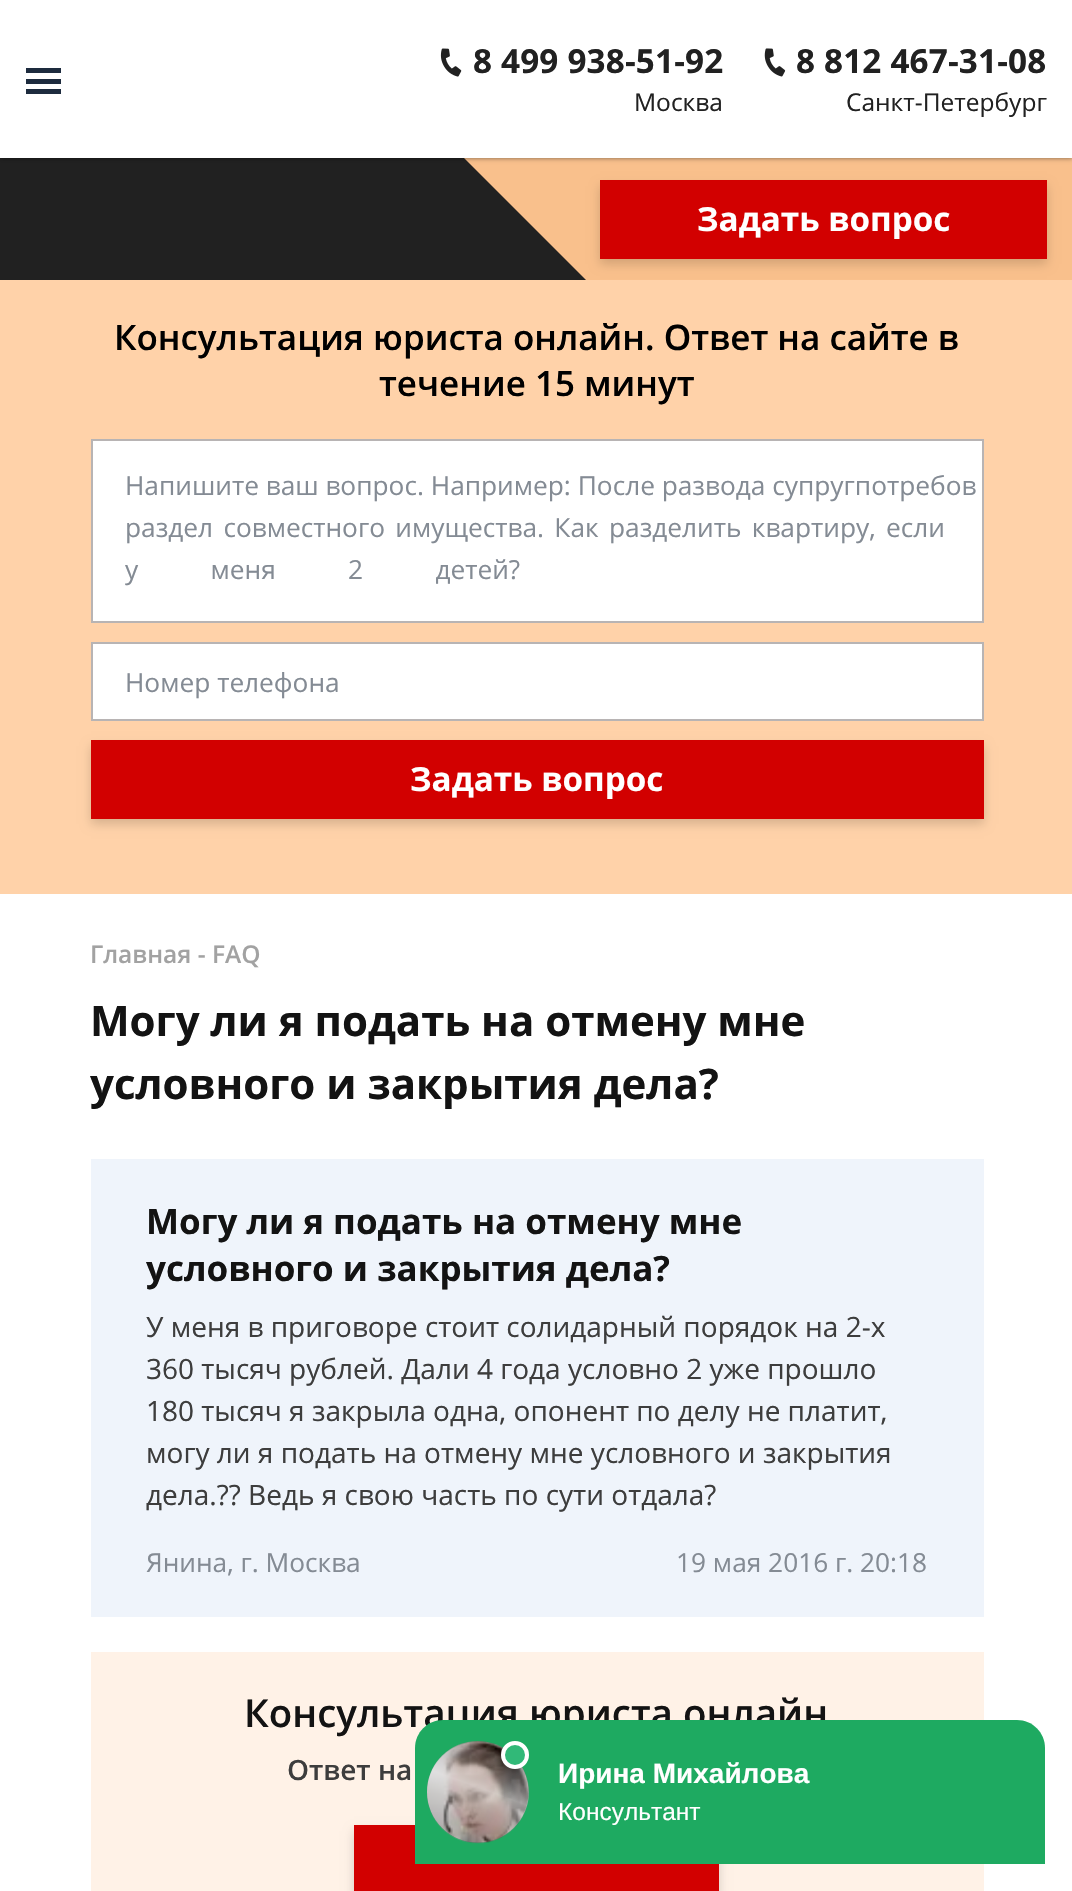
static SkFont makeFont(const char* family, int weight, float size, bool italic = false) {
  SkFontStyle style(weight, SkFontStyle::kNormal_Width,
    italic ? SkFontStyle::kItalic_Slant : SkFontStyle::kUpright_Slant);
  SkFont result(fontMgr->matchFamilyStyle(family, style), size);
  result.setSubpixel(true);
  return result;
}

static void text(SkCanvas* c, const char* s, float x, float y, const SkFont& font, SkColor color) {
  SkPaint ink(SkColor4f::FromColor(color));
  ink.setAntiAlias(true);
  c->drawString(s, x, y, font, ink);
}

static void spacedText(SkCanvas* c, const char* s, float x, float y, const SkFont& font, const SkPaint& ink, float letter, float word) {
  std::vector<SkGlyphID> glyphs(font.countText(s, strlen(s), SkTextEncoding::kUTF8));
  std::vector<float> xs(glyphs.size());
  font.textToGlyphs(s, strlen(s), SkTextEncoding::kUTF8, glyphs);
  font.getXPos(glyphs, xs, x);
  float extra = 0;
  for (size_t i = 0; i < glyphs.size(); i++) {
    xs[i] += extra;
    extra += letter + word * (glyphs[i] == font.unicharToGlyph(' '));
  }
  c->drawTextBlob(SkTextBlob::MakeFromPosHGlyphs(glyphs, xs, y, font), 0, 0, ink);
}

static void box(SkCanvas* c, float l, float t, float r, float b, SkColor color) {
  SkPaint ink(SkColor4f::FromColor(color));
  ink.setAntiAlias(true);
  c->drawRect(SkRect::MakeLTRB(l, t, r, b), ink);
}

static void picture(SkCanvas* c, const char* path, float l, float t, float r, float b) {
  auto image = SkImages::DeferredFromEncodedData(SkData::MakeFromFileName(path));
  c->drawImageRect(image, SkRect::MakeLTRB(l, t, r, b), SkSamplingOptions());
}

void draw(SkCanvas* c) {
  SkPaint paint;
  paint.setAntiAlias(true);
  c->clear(0xffffffff);
  box(c, 464, 158, 1072, 280, 0xfff9c08c);
  box(c, 0, 158, 464, 280, 0xff212121);
  paint.setColor(0xff212121);
  c->drawPath(SkPathBuilder().moveTo(464, 280).lineTo(464, 158).lineTo(586, 280).close().detach(), paint);
  paint.setColor(0x80000000);
  paint.setMaskFilter(SkMaskFilter::MakeBlur(kNormal_SkBlurStyle, 2.5f));
  c->drawRect(SkRect::MakeLTRB(0, 0, 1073, 158), paint);
  paint.setMaskFilter(nullptr);
  box(c, 0, 0, 1072, 158, 0xffffffff);
  box(c, 26, 68, 61, 73, 0xff1d2b3e);
  box(c, 26, 79, 61, 84, 0xff1d2b3e);
  box(c, 26, 89, 61, 94, 0xff1d2b3e);
  picture(c, "img_01.png", 440, 48, 462, 77);
  SkFont face1 = makeFont("Open Sans", 700, 33.25f);
  paint.setColor(0xff212121);
  spacedText(c, "8 499 938-51-92", 473, 73, face1, paint, 0.2f, 0);
  SkFont face2 = makeFont("Open Sans", 400, 24.5f);
  text(c, "Москва", 634, 111, face2, 0xff212121);
  picture(c, "img_02.png", 764, 48, 786, 77);
  spacedText(c, "8 812 467-31-08", 796, 73, face1, paint, 0.2f, 0);
  text(c, "Санкт-Петербург", 846, 111, face2, 0xff212121);
  paint.setColor(0x29000000);
  paint.setMaskFilter(SkMaskFilter::MakeBlur(kNormal_SkBlurStyle, 5));
  c->drawRect(SkRect::MakeLTRB(600, 186, 1047, 264), paint);
  paint.setMaskFilter(nullptr);
  box(c, 600, 180, 1047, 259, 0xffd20000);
  text(c, "Задать вопрос", 697, 231, face1, 0xffffffff);
  box(c, 0, 280, 1072, 894, 0xffffd2a9);
  SkFont face3 = makeFont("Open Sans", 600, 35);
  text(c, "Консультация юриста онлайн. Ответ на сайте в", 114, 350, face3, 0xff000000);
  text(c, "течение 15 минут", 379, 396, face3, 0xff000000);
  paint.setColor(0xffffffff);
  c->drawRect(SkRect::MakeLTRB(92, 440, 983, 622), paint);
  paint.setStyle(SkPaint::kStroke_Style);
  paint.setStrokeWidth(2);
  paint.setColor(0xffb8b4b4);
  c->drawRect(SkRect::MakeLTRB(92, 440, 983, 622), paint);
  SkFont face4 = makeFont("Open Sans", 400, 26.25f);
  text(c, "Напишите ваш вопрос. Например: После развода супругпотребов", 125, 495, face4, 0xff848b94);
  paint.setStyle(SkPaint::kFill_Style);
  paint.setColor(0xff848b94);
  spacedText(c, "раздел совместного имущества. Как разделить квартиру,", 125, 537, face4, paint, 0, 3.5f);
  text(c, "если", 886, 537, face4, 0xff848b94);
  spacedText(c, "у меня 2 детей?", 125, 579, face4, paint, 0, 65.5f);
  paint.setColor(0xffffffff);
  c->drawRect(SkRect::MakeLTRB(92, 643, 983, 720), paint);
  paint.setStyle(SkPaint::kStroke_Style);
  paint.setColor(0xffb8b4b4);
  c->drawRect(SkRect::MakeLTRB(92, 643, 983, 720), paint);
  text(c, "Номер телефона", 125, 692, face4, 0xff848b94);
  paint.setStyle(SkPaint::kFill_Style);
  paint.setColor(0x29000000);
  paint.setMaskFilter(SkMaskFilter::MakeBlur(kNormal_SkBlurStyle, 5));
  c->drawRect(SkRect::MakeLTRB(91, 746, 984, 824), paint);
  paint.setMaskFilter(nullptr);
  box(c, 91, 740, 984, 819, 0xffd20000);
  text(c, "Задать вопрос", 410, 791, face1, 0xffffffff);
  SkFont face5 = makeFont("Open Sans", 600, 24.5f);
  text(c, "Главная - FAQ", 90, 963, face5, 0xffa2a2a2);
  SkFont face6 = makeFont("Open Sans", 700, 42);
  text(c, "Могу ли я подать на отмену мне", 90, 1036, face6, 0xff131313);
  text(c, "условного и закрытия дела?", 90, 1099, face6, 0xff131313);
  box(c, 91, 1159, 984, 1617, 0xffeff4fb);
  SkFont face7 = makeFont("Open Sans", 700, 35);
  text(c, "Могу ли я подать на отмену мне", 146, 1234, face7, 0xff131313);
  text(c, "условного и закрытия дела?", 146, 1281, face7, 0xff131313);
  SkFont face8 = makeFont("Open Sans", 400, 28);
  text(c, "У меня в приговоре стоит солидарный порядок на 2-х", 146, 1337, face8, 0xff3d3d3d);
  text(c, "360 тысяч рублей. Дали 4 года условно 2 уже прошло", 146, 1379, face8, 0xff3d3d3d);
  text(c, "180 тысяч я закрыла одна, опонент по делу не платит,", 146, 1421, face8, 0xff3d3d3d);
  text(c, "могу ли я подать на отмену мне условного и закрытия", 146, 1463, face8, 0xff3d3d3d);
  text(c, "дела.?\077 Ведь я свою часть по сути отдала?", 146, 1505, face8, 0xff3d3d3d);
  text(c, "Янина, г. Москва", 146, 1572, face4, 0xff848b94);
  text(c, "19 мая 2016 г. 20:18", 676, 1572, face4, 0xff848b94);
  box(c, 91, 1652, 984, 1891, 0xfffff2e7);
  SkFont face9 = makeFont("Open Sans", 600, 38.5f);
  text(c, "Консультация юриста онлайн", 244, 1727, face9, 0xff131313);
  SkFont face10 = makeFont("Open Sans", 600, 28);
  text(c, "Ответ на", 287, 1780, face10, 0xff3d3d3d);
  paint.setMaskFilter(SkMaskFilter::MakeBlur(kNormal_SkBlurStyle, 5));
  c->drawRect(SkRect::MakeLTRB(354, 1831, 719, 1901), paint);
  paint.setMaskFilter(nullptr);
  box(c, 354, 1825, 719, 1891, 0xffd20000);
  paint.setColor(0xff1eaa61);
  c->drawPath(SkPathBuilder().moveTo(443, 1720).lineTo(1017, 1720).cubicTo(1032.5f, 1720, 1045, 1732.5f, 1045, 1748).lineTo(1045, 1864).lineTo(415, 1864).lineTo(415, 1748).cubicTo(415, 1732.5f, 427.5f, 1720, 443, 1720).close().detach(), paint);
  paint.setColor(0xff178049);
  c->drawCircle(478, 1792, 51, paint);
  picture(c, "img_03.png", 427, 1741, 529, 1844);
  {
    const SkColor colors[] = {0x00ffffff, 0x99ffffff, 0x5cffffff, 0x00ffffff};
    const float stops[] = {0, 0.4f, 0.6f, 1};
    const SkPoint ends[] = {{495, 1750}, {460, 1846}};
    paint.setShader(SkGradientShader::MakeLinear(ends, colors, stops, 4, SkTileMode::kClamp));
    paint.setAlpha(255);
  }
  c->drawPath(SkPathBuilder().moveTo(471, 1742).lineTo(516, 1758).cubicTo(524, 1767, 529, 1779, 529, 1792).cubicTo(529, 1820, 506, 1843, 478, 1843).cubicTo(450, 1843, 427, 1820, 427, 1792).cubicTo(427, 1766, 446, 1745, 471, 1742).close().detach(), paint);
  paint.setShader(nullptr);
  paint.setColor(0xff31b978);
  c->drawCircle(515, 1755, 12, paint);
  paint.setStyle(SkPaint::kStroke_Style);
  paint.setStrokeWidth(4);
  paint.setColor(0xffffffff);
  c->drawCircle(515, 1755, 12, paint);
  SkFont face11 = makeFont("Liberation Sans", 700, 28);
  text(c, "Ирина Михайлова", 558, 1783, face11, 0xffffffff);
  SkFont face12 = makeFont("Liberation Sans", 400, 24.5f);
  text(c, "Консультант", 558, 1820, face12, 0xffffffff);
}
